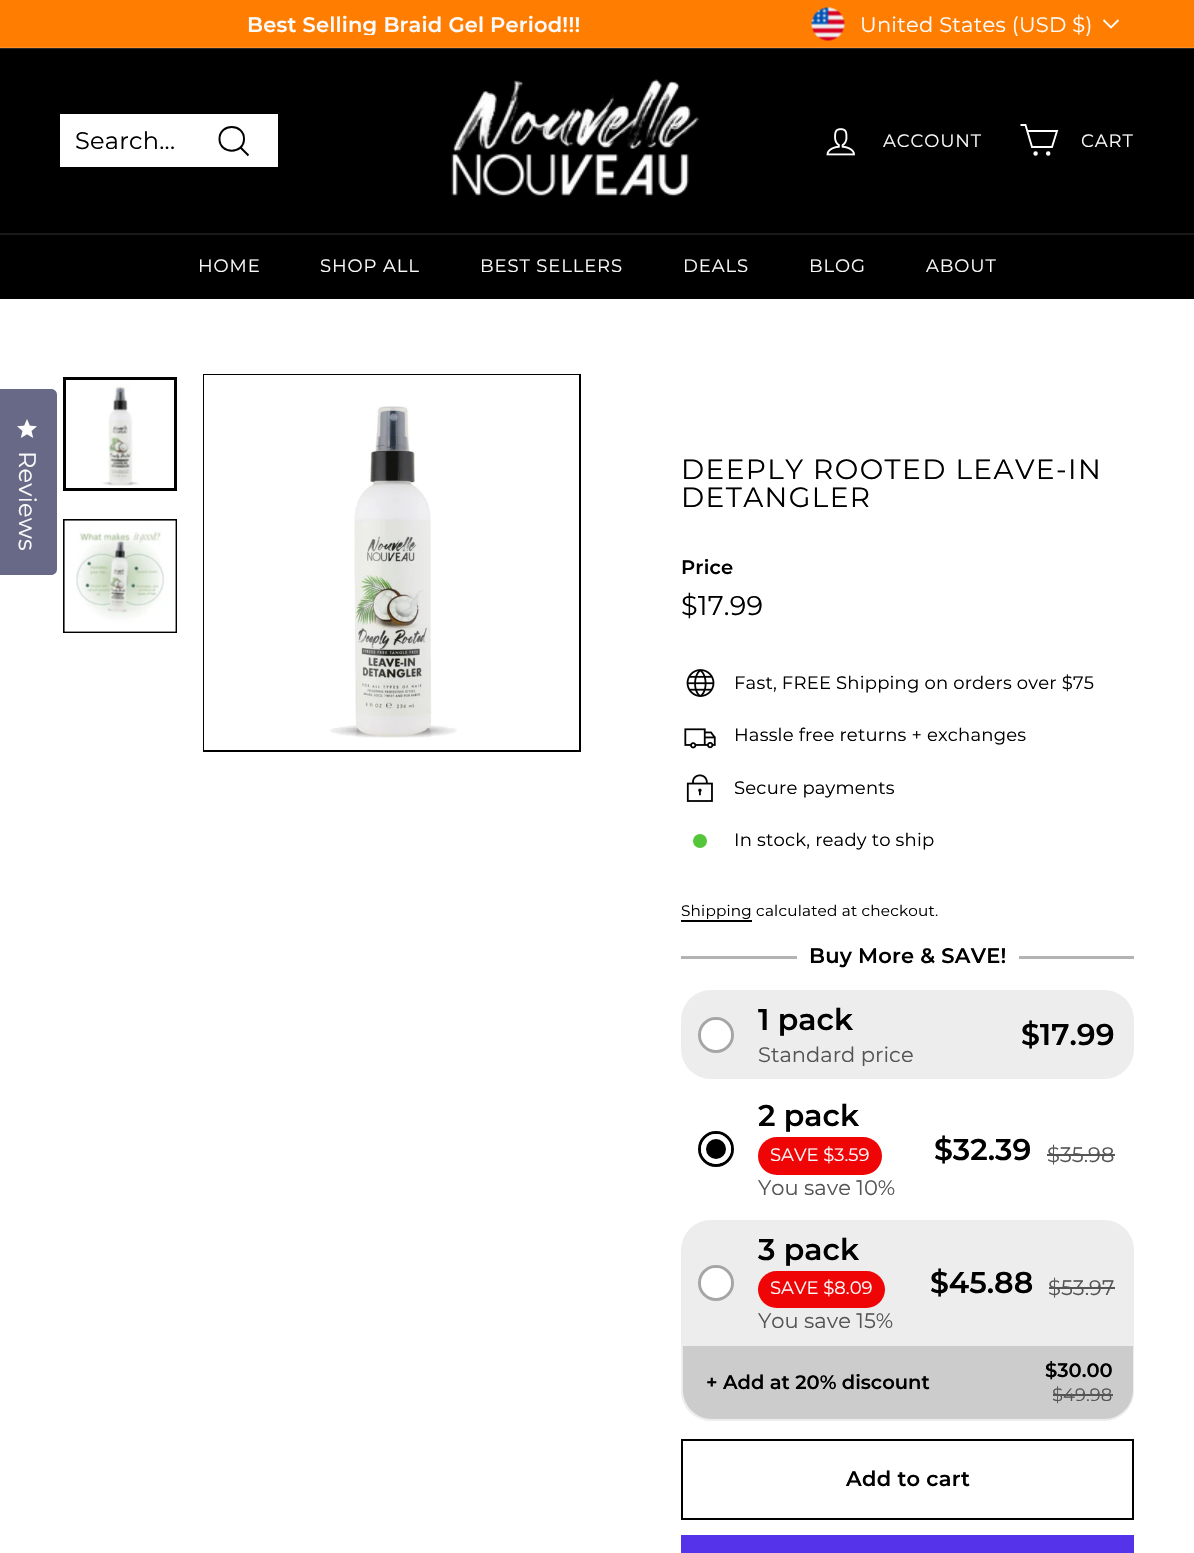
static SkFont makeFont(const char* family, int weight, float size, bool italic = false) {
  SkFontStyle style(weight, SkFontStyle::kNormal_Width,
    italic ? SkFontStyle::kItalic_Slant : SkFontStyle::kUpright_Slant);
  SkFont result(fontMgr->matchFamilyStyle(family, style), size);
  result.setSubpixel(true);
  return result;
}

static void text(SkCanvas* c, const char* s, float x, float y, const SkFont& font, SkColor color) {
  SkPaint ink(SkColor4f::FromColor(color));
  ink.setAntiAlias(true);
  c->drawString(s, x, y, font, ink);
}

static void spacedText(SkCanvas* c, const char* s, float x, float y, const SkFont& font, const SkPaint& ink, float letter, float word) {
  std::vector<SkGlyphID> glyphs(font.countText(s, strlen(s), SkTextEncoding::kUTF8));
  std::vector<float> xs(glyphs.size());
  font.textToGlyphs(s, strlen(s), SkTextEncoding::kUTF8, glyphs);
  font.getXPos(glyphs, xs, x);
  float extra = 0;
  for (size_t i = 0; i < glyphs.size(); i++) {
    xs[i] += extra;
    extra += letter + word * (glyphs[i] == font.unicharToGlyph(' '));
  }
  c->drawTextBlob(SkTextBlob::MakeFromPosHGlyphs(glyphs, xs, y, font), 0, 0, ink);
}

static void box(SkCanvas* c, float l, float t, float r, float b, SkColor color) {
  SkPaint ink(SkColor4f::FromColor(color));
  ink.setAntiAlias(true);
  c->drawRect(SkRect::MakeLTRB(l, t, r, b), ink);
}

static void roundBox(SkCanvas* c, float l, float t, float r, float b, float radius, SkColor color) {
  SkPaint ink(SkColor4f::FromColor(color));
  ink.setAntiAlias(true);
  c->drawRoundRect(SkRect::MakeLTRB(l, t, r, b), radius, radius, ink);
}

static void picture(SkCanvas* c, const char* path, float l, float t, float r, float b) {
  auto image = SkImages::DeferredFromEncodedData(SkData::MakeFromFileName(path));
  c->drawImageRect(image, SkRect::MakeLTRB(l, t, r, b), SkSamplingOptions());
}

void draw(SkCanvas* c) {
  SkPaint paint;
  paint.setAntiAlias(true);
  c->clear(0xffffffff);
  paint.setColor(0xff676986);
  c->drawPath(SkPathBuilder().moveTo(-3, 389).lineTo(51, 389).cubicTo(54.5f, 389, 57, 391.5f, 57, 395).lineTo(57, 569).cubicTo(57, 572.5f, 54.5f, 575, 51, 575).lineTo(-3, 575).close().detach(), paint);
  picture(c, "img_01.png", 17, 419, 37, 438);
  SkFont face1 = makeFont("Montserrat", 400, 24);
  paint.setColor(0xfffafafa);
  c->save();
  c->rotate(90.1f, 19, 451);
  spacedText(c, "Reviews", 19, 451, face1, paint, 0.2f, 0);
  c->restore();
  box(c, 0, 0, 1194, 47, 0xffff7d00);
  box(c, 0, 47, 1194, 48, 0xffff9126);
  c->save();
  c->clipRect(SkRect::MakeLTRB(60, 14, 767, 35));
  SkFont face2 = makeFont("Montserrat", 600, 21);
  spacedText(c, "Best Selling Braid Gel", 247, 32, face2, paint, 0.2f, 0);
  c->restore();
  spacedText(c, "Period!!!", 490, 32, face2, paint, 0.2f, 0);
  picture(c, "img_02.png", 811, 7, 845, 41);
  SkFont face3 = makeFont("Montserrat", 400, 21);
  spacedText(c, "United States (USD $)", 860, 32, face3, paint, 0.25f, 0);
  paint.setStyle(SkPaint::kStroke_Style);
  paint.setStrokeWidth(1.8f);
  paint.setColor(0xffffffff);
  c->drawPath(SkPathBuilder().moveTo(1103.5f, 20).lineTo(1111, 27.5f).lineTo(1118.5f, 20).detach(), paint);
  box(c, 0, 49, 1194, 233, 0xff000000);
  box(c, 0, 48, 1194, 49, 0xff262626);
  box(c, 60, 114, 278, 167, 0xffffffff);
  paint.setStyle(SkPaint::kFill_Style);
  paint.setColor(0xff000000);
  spacedText(c, "Search...", 75, 149, face1, paint, 0.25f, 0);
  paint.setStyle(SkPaint::kStroke_Style);
  paint.setStrokeWidth(2);
  c->drawPath(SkPathBuilder().moveTo(244, 139).cubicTo(244, 154.5f, 219.5f, 154.5f, 219.5f, 139).cubicTo(219.5f, 123, 244, 123, 244, 139).close().moveTo(248.5f, 155.5f).lineTo(240.5f, 147.5f).detach(), paint);
  picture(c, "img_03.png", 451, 79, 700, 197);
  picture(c, "img_04.png", 826, 128, 855, 156);
  SkFont face4 = makeFont("Montserrat", 400, 18);
  paint.setStyle(SkPaint::kFill_Style);
  paint.setColor(0xfffafafa);
  spacedText(c, "ACCOUNT", 883, 147, face4, paint, 0.9f, 0);
  paint.setStyle(SkPaint::kStroke_Style);
  paint.setStrokeWidth(1.9f);
  paint.setColor(0xffffffff);
  c->drawPath(SkPathBuilder().moveTo(1027.5f, 131).lineTo(1057, 131).lineTo(1052, 147).lineTo(1032, 147).lineTo(1025.5f, 125).lineTo(1020.5f, 125).detach(), paint);
  paint.setStyle(SkPaint::kFill_Style);
  c->drawCircle(1035.6f, 153.5f, 1.3f, paint);
  paint.setStyle(SkPaint::kStroke_Style);
  c->drawCircle(1035.6f, 153.5f, 1.3f, paint);
  paint.setStyle(SkPaint::kFill_Style);
  c->drawCircle(1048.2f, 153.5f, 1.3f, paint);
  paint.setStyle(SkPaint::kStroke_Style);
  c->drawCircle(1048.2f, 153.5f, 1.3f, paint);
  paint.setStyle(SkPaint::kFill_Style);
  paint.setColor(0xfffafafa);
  spacedText(c, "CART", 1081, 147, face4, paint, 0.9f, 0);
  box(c, 0, 235, 1194, 299, 0xff000000);
  box(c, 0, 233, 1194, 235, 0xff1a1a1a);
  spacedText(c, "HOME", 198, 272, face4, paint, 0.9f, 0);
  spacedText(c, "SHOP ALL", 320, 272, face4, paint, 0.9f, 0);
  spacedText(c, "BEST SELLERS", 480, 272, face4, paint, 0.9f, 0);
  spacedText(c, "DEALS", 683, 272, face4, paint, 0.9f, 0);
  spacedText(c, "BLOG", 809, 272, face4, paint, 0.9f, 0);
  spacedText(c, "ABOUT", 926, 272, face4, paint, 0.9f, 0);
  picture(c, "img_05.png", 66, 380, 174, 488);
  paint.setStyle(SkPaint::kStroke_Style);
  paint.setStrokeWidth(3);
  paint.setColor(0xff000000);
  c->drawRect(SkRect::MakeLTRB(64.5f, 378.5f, 175.5f, 489.5f), paint);
  paint.setStrokeWidth(2);
  c->drawRect(SkRect::MakeLTRB(64, 520, 176, 632), paint);
  picture(c, "img_06.png", 64, 520, 176, 632);
  c->drawRect(SkRect::MakeLTRB(204, 375, 580, 751), paint);
  box(c, 204, 375, 579, 750, 0xffffffff);
  picture(c, "img_07.png", 329, 406, 457, 738);
  SkFont face5 = makeFont("Montserrat", 400, 28);
  paint.setStyle(SkPaint::kFill_Style);
  spacedText(c, "DEEPLY ROOTED LEAVE-IN", 681, 479, face5, paint, 1.4f, 0);
  spacedText(c, "DETANGLER", 681, 507, face5, paint, 1.4f, 0);
  SkFont face6 = makeFont("Montserrat", 600, 19.5f);
  spacedText(c, "Price", 681, 574, face6, paint, 0.2f, 0);
  SkFont face7 = makeFont("Montserrat", 400, 27);
  spacedText(c, "$17.99", 681, 615, face7, paint, 0.2f, 0);
  picture(c, "img_08.png", 686, 669, 715, 697);
  spacedText(c, "Fast, FREE Shipping on orders over $75", 734, 689, face4, paint, 0.2f, 0);
  picture(c, "img_09.png", 684, 728, 716, 749);
  spacedText(c, "Hassle free returns + exchanges", 734, 741, face4, paint, 0.2f, 0);
  picture(c, "img_10.png", 686, 774, 713, 802);
  spacedText(c, "Secure payments", 734, 794, face4, paint, 0.2f, 0);
  paint.setColor(0xff54c63a);
  c->drawCircle(700, 841, 7, paint);
  paint.setColor(0xff000000);
  spacedText(c, "In stock, ready to ship", 734, 846, face4, paint, 0.2f, 0);
  SkFont face8 = makeFont("Montserrat", 400, 15.25f);
  spacedText(c, "Shipping calculated at checkout.", 681, 916, face8, paint, 0.2f, 0);
  box(c, 681, 920, 752, 922, 0xff000000);
  box(c, 681, 956, 797, 959, 0xffb3b3b3);
  spacedText(c, "Buy More & SAVE!", 809, 963, face2, paint, 0.2f, 0);
  box(c, 1019, 956, 1134, 959, 0xffb3b3b3);
  roundBox(c, 681, 990, 1134, 1079, 30, 0xffededed);
  paint.setStyle(SkPaint::kStroke_Style);
  paint.setStrokeWidth(3);
  paint.setColor(0xffa6a6a6);
  c->drawCircle(716, 1035, 16.5f, paint);
  paint.setStyle(SkPaint::kFill_Style);
  paint.setColor(0xffffffff);
  c->drawCircle(716, 1035, 12.5f, paint);
  paint.setStyle(SkPaint::kStroke_Style);
  paint.setStrokeWidth(5);
  c->drawCircle(716, 1035, 12.5f, paint);
  SkFont face9 = makeFont("Montserrat", 600, 30);
  text(c, "1 pack", 758, 1030, face9, 0xff000000);
  text(c, "Standard price", 758, 1062, face3, 0xff555555);
  text(c, "$17.99", 1021, 1045, face9, 0xff000000);
  paint.setStrokeWidth(3);
  paint.setColor(0xff000000);
  c->drawCircle(716, 1149, 16.5f, paint);
  paint.setStyle(SkPaint::kFill_Style);
  c->drawCircle(716, 1149, 12.5f, paint);
  paint.setStyle(SkPaint::kStroke_Style);
  paint.setStrokeWidth(5);
  paint.setColor(0xffffffff);
  c->drawCircle(716, 1149, 12.5f, paint);
  text(c, "2 pack", 758, 1126, face9, 0xff000000);
  roundBox(c, 758, 1137, 882, 1175, 19, 0xffef0505);
  text(c, "SAVE $3.59", 770, 1161, face4, 0xfffafafa);
  text(c, "You save 10%", 758, 1195, face3, 0xff555555);
  text(c, "$32.39", 934, 1160, face9, 0xff000000);
  text(c, "$35.98", 1047, 1162, face3, 0xff555555);
  box(c, 1047, 1154, 1115, 1156, 0xff555555);
  roundBox(c, 681, 1220, 1134, 1421, 30, 0xffededed);
  paint.setStrokeWidth(3);
  paint.setColor(0xffa6a6a6);
  c->drawCircle(716, 1283, 16.5f, paint);
  paint.setStyle(SkPaint::kFill_Style);
  paint.setColor(0xffffffff);
  c->drawCircle(716, 1283, 12.5f, paint);
  paint.setStyle(SkPaint::kStroke_Style);
  paint.setStrokeWidth(5);
  c->drawCircle(716, 1283, 12.5f, paint);
  text(c, "3 pack", 758, 1260, face9, 0xff000000);
  roundBox(c, 758, 1271, 885, 1308, 18.5f, 0xffef0505);
  text(c, "SAVE $8.09", 770, 1294, face4, 0xfffafafa);
  text(c, "You save 15%", 758, 1328, face3, 0xff555555);
  text(c, "$45.88", 930, 1293, face9, 0xff000000);
  text(c, "$53.97", 1048, 1295, face3, 0xff555555);
  box(c, 1049, 1287, 1115, 1289, 0xff555555);
  paint.setStyle(SkPaint::kFill_Style);
  paint.setColor(0xffcccccc);
  c->drawPath(SkPathBuilder().moveTo(683, 1346).lineTo(1133, 1346).lineTo(1133, 1390).cubicTo(1133, 1406, 1120, 1419, 1104, 1419).lineTo(712, 1419).cubicTo(696, 1419, 683, 1406, 683, 1390).close().detach(), paint);
  text(c, "+ Add at 20% discount", 706, 1389, face6, 0xff000000);
  text(c, "$30.00", 1045, 1377, face6, 0xff000000);
  text(c, "$49.98", 1052, 1401, face4, 0xff555555);
  box(c, 1053, 1394, 1113, 1396, 0xff555555);
  paint.setStyle(SkPaint::kStroke_Style);
  paint.setStrokeWidth(2);
  paint.setColor(0xff000000);
  c->drawRect(SkRect::MakeLTRB(682, 1440, 1133, 1519), paint);
  paint.setStyle(SkPaint::kFill_Style);
  spacedText(c, "Add to cart", 846, 1486, face2, paint, 0.25f, 0);
  box(c, 681, 1535, 1134, 1553, 0xff5433eb);
}
